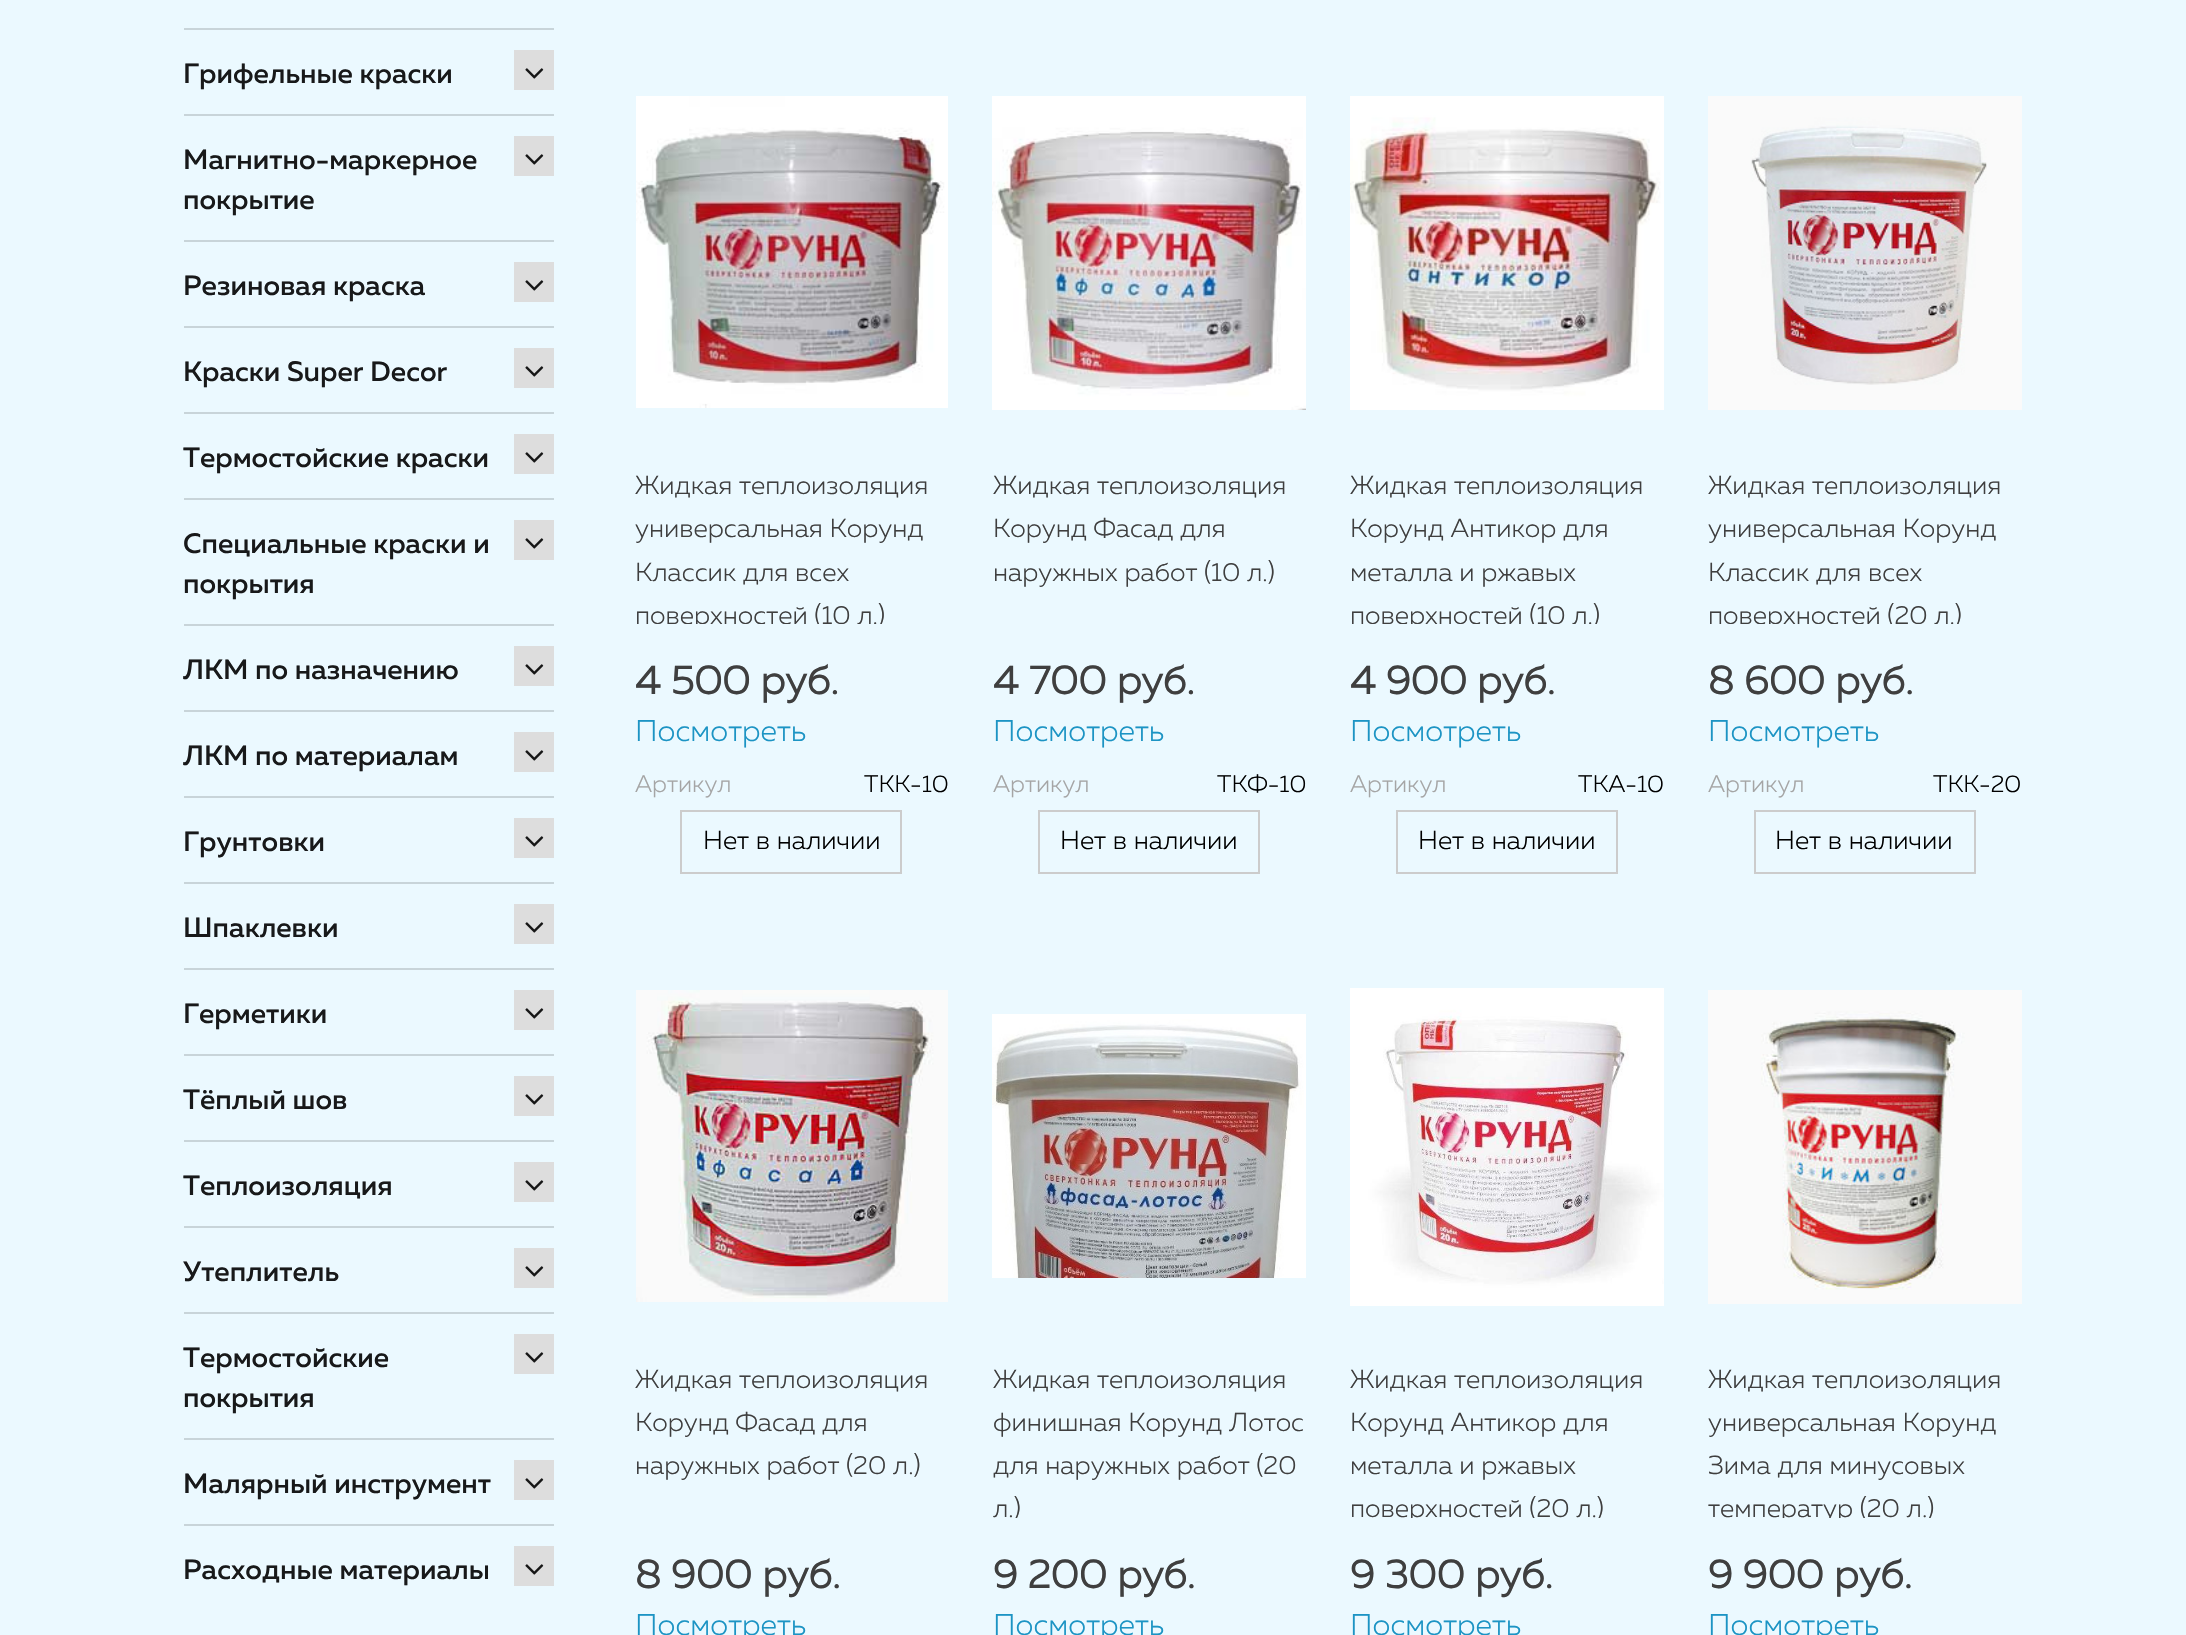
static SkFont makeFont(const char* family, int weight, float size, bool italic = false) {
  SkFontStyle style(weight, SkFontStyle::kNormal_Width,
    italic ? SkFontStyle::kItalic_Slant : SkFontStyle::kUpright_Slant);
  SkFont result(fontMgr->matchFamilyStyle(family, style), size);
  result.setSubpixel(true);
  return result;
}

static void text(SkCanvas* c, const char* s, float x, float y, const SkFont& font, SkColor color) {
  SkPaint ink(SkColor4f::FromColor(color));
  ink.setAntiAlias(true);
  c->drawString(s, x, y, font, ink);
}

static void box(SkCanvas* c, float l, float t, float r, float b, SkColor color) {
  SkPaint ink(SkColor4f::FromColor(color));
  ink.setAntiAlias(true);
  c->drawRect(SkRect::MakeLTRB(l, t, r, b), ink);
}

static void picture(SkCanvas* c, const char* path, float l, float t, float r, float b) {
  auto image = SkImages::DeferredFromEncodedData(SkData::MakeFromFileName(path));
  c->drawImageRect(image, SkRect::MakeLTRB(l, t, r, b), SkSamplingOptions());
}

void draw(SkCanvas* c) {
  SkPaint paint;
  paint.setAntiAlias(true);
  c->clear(0xffebf9ff);
  box(c, 184, 28, 554, 30, 0xffc8d4d9);
  box(c, 184, 114, 554, 116, 0xffc8d4d9);
  SkFont face1 = makeFont("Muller", 500, 28);
  text(c, "Грифельные краски", 183, 83, face1, 0xff18191a);
  box(c, 514, 50, 554, 90, 0xffdddddd);
  picture(c, "img_01.png", 525, 68, 544, 79);
  box(c, 184, 240, 554, 242, 0xffc8d4d9);
  text(c, "Магнитно-маркерное", 183, 169, face1, 0xff18191a);
  text(c, "покрытие", 183, 209, face1, 0xff18191a);
  box(c, 514, 136, 554, 176, 0xffdddddd);
  picture(c, "img_01.png", 525, 154, 544, 165);
  box(c, 184, 326, 554, 328, 0xffc8d4d9);
  text(c, "Резиновая краска", 183, 295, face1, 0xff18191a);
  box(c, 514, 262, 554, 302, 0xffdddddd);
  picture(c, "img_01.png", 525, 280, 544, 291);
  box(c, 184, 412, 554, 414, 0xffc8d4d9);
  text(c, "Краски Super Decor", 183, 381, face1, 0xff18191a);
  box(c, 514, 348, 554, 388, 0xffdddddd);
  picture(c, "img_01.png", 525, 366, 544, 377);
  box(c, 184, 498, 554, 500, 0xffc8d4d9);
  text(c, "Термостойские краски", 183, 467, face1, 0xff18191a);
  box(c, 514, 434, 554, 474, 0xffdddddd);
  picture(c, "img_01.png", 525, 452, 544, 463);
  box(c, 184, 624, 554, 626, 0xffc8d4d9);
  text(c, "Специальные краски и", 183, 553, face1, 0xff18191a);
  text(c, "покрытия", 183, 593, face1, 0xff18191a);
  box(c, 514, 520, 554, 560, 0xffdddddd);
  picture(c, "img_01.png", 525, 538, 544, 549);
  box(c, 184, 710, 554, 712, 0xffc8d4d9);
  text(c, "ЛКМ по назначению", 183, 679, face1, 0xff18191a);
  box(c, 514, 646, 554, 686, 0xffdddddd);
  picture(c, "img_01.png", 525, 664, 544, 675);
  box(c, 184, 796, 554, 798, 0xffc8d4d9);
  text(c, "ЛКМ по материалам", 183, 765, face1, 0xff18191a);
  box(c, 514, 732, 554, 772, 0xffdddddd);
  picture(c, "img_01.png", 525, 750, 544, 761);
  box(c, 184, 882, 554, 884, 0xffc8d4d9);
  text(c, "Грунтовки", 183, 851, face1, 0xff18191a);
  box(c, 514, 818, 554, 858, 0xffdddddd);
  picture(c, "img_01.png", 525, 836, 544, 847);
  box(c, 184, 968, 554, 970, 0xffc8d4d9);
  text(c, "Шпаклевки", 183, 937, face1, 0xff18191a);
  box(c, 514, 904, 554, 944, 0xffdddddd);
  picture(c, "img_01.png", 525, 922, 544, 933);
  box(c, 184, 1054, 554, 1056, 0xffc8d4d9);
  text(c, "Герметики", 183, 1023, face1, 0xff18191a);
  box(c, 514, 990, 554, 1030, 0xffdddddd);
  picture(c, "img_01.png", 525, 1008, 544, 1019);
  box(c, 184, 1140, 554, 1142, 0xffc8d4d9);
  text(c, "Тёплый шов", 183, 1109, face1, 0xff18191a);
  box(c, 514, 1076, 554, 1116, 0xffdddddd);
  picture(c, "img_01.png", 525, 1094, 544, 1105);
  box(c, 184, 1226, 554, 1228, 0xffc8d4d9);
  text(c, "Теплоизоляция", 183, 1195, face1, 0xff18191a);
  box(c, 514, 1162, 554, 1202, 0xffdddddd);
  picture(c, "img_01.png", 525, 1180, 544, 1191);
  box(c, 184, 1312, 554, 1314, 0xffc8d4d9);
  text(c, "Утеплитель", 183, 1281, face1, 0xff18191a);
  box(c, 514, 1248, 554, 1288, 0xffdddddd);
  picture(c, "img_01.png", 525, 1266, 544, 1277);
  box(c, 184, 1438, 554, 1440, 0xffc8d4d9);
  text(c, "Термостойские", 183, 1367, face1, 0xff18191a);
  text(c, "покрытия", 183, 1407, face1, 0xff18191a);
  box(c, 514, 1334, 554, 1374, 0xffdddddd);
  picture(c, "img_01.png", 525, 1352, 544, 1363);
  box(c, 184, 1524, 554, 1526, 0xffc8d4d9);
  text(c, "Малярный инструмент", 183, 1493, face1, 0xff18191a);
  box(c, 514, 1460, 554, 1500, 0xffdddddd);
  picture(c, "img_01.png", 525, 1478, 544, 1489);
  text(c, "Расходные материалы", 183, 1579, face1, 0xff18191a);
  box(c, 514, 1546, 554, 1586, 0xffdddddd);
  picture(c, "img_01.png", 525, 1564, 544, 1575);
  picture(c, "img_02.png", 636, 96, 948, 408);
  SkFont face2 = makeFont("Muller", 300, 26);
  text(c, "Жидкая теплоизоляция", 635, 494, face2, 0xff3f3f3f);
  text(c, "универсальная Корунд", 635, 537, face2, 0xff3f3f3f);
  text(c, "Классик для всех", 635, 581, face2, 0xff3f3f3f);
  c->save();
  c->clipRect(SkRect::MakeLTRB(636, 464, 948, 624));
  text(c, "поверхностей (10 л.)", 635, 624, face2, 0xff3f3f3f);
  c->restore();
  SkFont face3 = makeFont("Muller", 700, 40);
  text(c, "4 500 руб.", 635, 694, face3, 0xff3f3f3f);
  SkFont face4 = makeFont("Muller", 300, 30);
  text(c, "Посмотреть", 635, 741, face4, 0xff1c94c4);
  SkFont face5 = makeFont("Muller", 300, 24);
  text(c, "Артикул", 635, 792, face5, 0xffa5a5a5);
  text(c, "ТКК-10", 864, 792, face5, 0xff000000);
  paint.setStyle(SkPaint::kStroke_Style);
  paint.setStrokeWidth(2);
  paint.setColor(0xffcccccc);
  c->drawRect(SkRect::MakeLTRB(681, 811, 901, 873), paint);
  text(c, "Нет в наличии", 703, 849, face2, 0xff000000);
  picture(c, "img_03.png", 992, 96, 1306, 410);
  text(c, "Жидкая теплоизоляция", 993, 494, face2, 0xff3f3f3f);
  text(c, "Корунд Фасад для", 993, 537, face2, 0xff3f3f3f);
  text(c, "наружных работ (10 л.)", 993, 581, face2, 0xff3f3f3f);
  text(c, "4 700 руб.", 993, 694, face3, 0xff3f3f3f);
  text(c, "Посмотреть", 993, 741, face4, 0xff1c94c4);
  text(c, "Артикул", 993, 792, face5, 0xffa5a5a5);
  text(c, "ТКФ-10", 1217, 792, face5, 0xff000000);
  c->drawRect(SkRect::MakeLTRB(1039, 811, 1259, 873), paint);
  text(c, "Нет в наличии", 1060, 849, face2, 0xff000000);
  picture(c, "img_04.png", 1350, 96, 1664, 410);
  text(c, "Жидкая теплоизоляция", 1350, 494, face2, 0xff3f3f3f);
  text(c, "Корунд Антикор для", 1350, 537, face2, 0xff3f3f3f);
  text(c, "металла и ржавых", 1350, 581, face2, 0xff3f3f3f);
  c->save();
  c->clipRect(SkRect::MakeLTRB(1350, 464, 1664, 624));
  text(c, "поверхностей (10 л.)", 1350, 624, face2, 0xff3f3f3f);
  c->restore();
  text(c, "4 900 руб.", 1350, 694, face3, 0xff3f3f3f);
  text(c, "Посмотреть", 1350, 741, face4, 0xff1c94c4);
  text(c, "Артикул", 1350, 792, face5, 0xffa5a5a5);
  text(c, "ТКА-10", 1578, 792, face5, 0xff000000);
  c->drawRect(SkRect::MakeLTRB(1397, 811, 1617, 873), paint);
  text(c, "Нет в наличии", 1418, 849, face2, 0xff000000);
  picture(c, "img_05.png", 1708, 96, 2022, 410);
  text(c, "Жидкая теплоизоляция", 1708, 494, face2, 0xff3f3f3f);
  text(c, "универсальная Корунд", 1708, 537, face2, 0xff3f3f3f);
  text(c, "Классик для всех", 1708, 581, face2, 0xff3f3f3f);
  c->save();
  c->clipRect(SkRect::MakeLTRB(1708, 464, 2022, 624));
  text(c, "поверхностей (20 л.)", 1708, 624, face2, 0xff3f3f3f);
  c->restore();
  text(c, "8 600 руб.", 1708, 694, face3, 0xff3f3f3f);
  text(c, "Посмотреть", 1708, 741, face4, 0xff1c94c4);
  text(c, "Артикул", 1708, 792, face5, 0xffa5a5a5);
  text(c, "ТКК-20", 1933, 792, face5, 0xff000000);
  c->drawRect(SkRect::MakeLTRB(1755, 811, 1975, 873), paint);
  text(c, "Нет в наличии", 1775, 849, face2, 0xff000000);
  picture(c, "img_06.png", 636, 990, 948, 1302);
  text(c, "Жидкая теплоизоляция", 635, 1388, face2, 0xff3f3f3f);
  text(c, "Корунд Фасад для", 635, 1431, face2, 0xff3f3f3f);
  text(c, "наружных работ (20 л.)", 635, 1474, face2, 0xff3f3f3f);
  text(c, "8 900 руб.", 635, 1588, face3, 0xff3f3f3f);
  text(c, "Посмотреть", 635, 1635, face4, 0xff1c94c4);
  picture(c, "img_07.png", 992, 1014, 1306, 1278);
  text(c, "Жидкая теплоизоляция", 993, 1388, face2, 0xff3f3f3f);
  text(c, "финишная Корунд Лотос", 993, 1431, face2, 0xff3f3f3f);
  text(c, "для наружных работ (20", 993, 1474, face2, 0xff3f3f3f);
  c->save();
  c->clipRect(SkRect::MakeLTRB(992, 1358, 1306, 1518));
  text(c, "л.)", 993, 1517, face2, 0xff3f3f3f);
  c->restore();
  text(c, "9 200 руб.", 993, 1588, face3, 0xff3f3f3f);
  text(c, "Посмотреть", 993, 1635, face4, 0xff1c94c4);
  picture(c, "img_08.png", 1350, 988, 1664, 1306);
  text(c, "Жидкая теплоизоляция", 1350, 1388, face2, 0xff3f3f3f);
  text(c, "Корунд Антикор для", 1350, 1431, face2, 0xff3f3f3f);
  text(c, "металла и ржавых", 1350, 1474, face2, 0xff3f3f3f);
  c->save();
  c->clipRect(SkRect::MakeLTRB(1350, 1358, 1664, 1518));
  text(c, "поверхностей (20 л.)", 1350, 1517, face2, 0xff3f3f3f);
  c->restore();
  text(c, "9 300 руб.", 1350, 1588, face3, 0xff3f3f3f);
  text(c, "Посмотреть", 1350, 1635, face4, 0xff1c94c4);
  picture(c, "img_09.png", 1708, 990, 2022, 1304);
  text(c, "Жидкая теплоизоляция", 1708, 1388, face2, 0xff3f3f3f);
  text(c, "универсальная Корунд", 1708, 1431, face2, 0xff3f3f3f);
  text(c, "Зима для минусовых", 1708, 1474, face2, 0xff3f3f3f);
  c->save();
  c->clipRect(SkRect::MakeLTRB(1708, 1358, 2022, 1518));
  text(c, "температур (20 л.)", 1708, 1517, face2, 0xff3f3f3f);
  c->restore();
  text(c, "9 900 руб.", 1708, 1588, face3, 0xff3f3f3f);
  text(c, "Посмотреть", 1708, 1635, face4, 0xff1c94c4);
}
